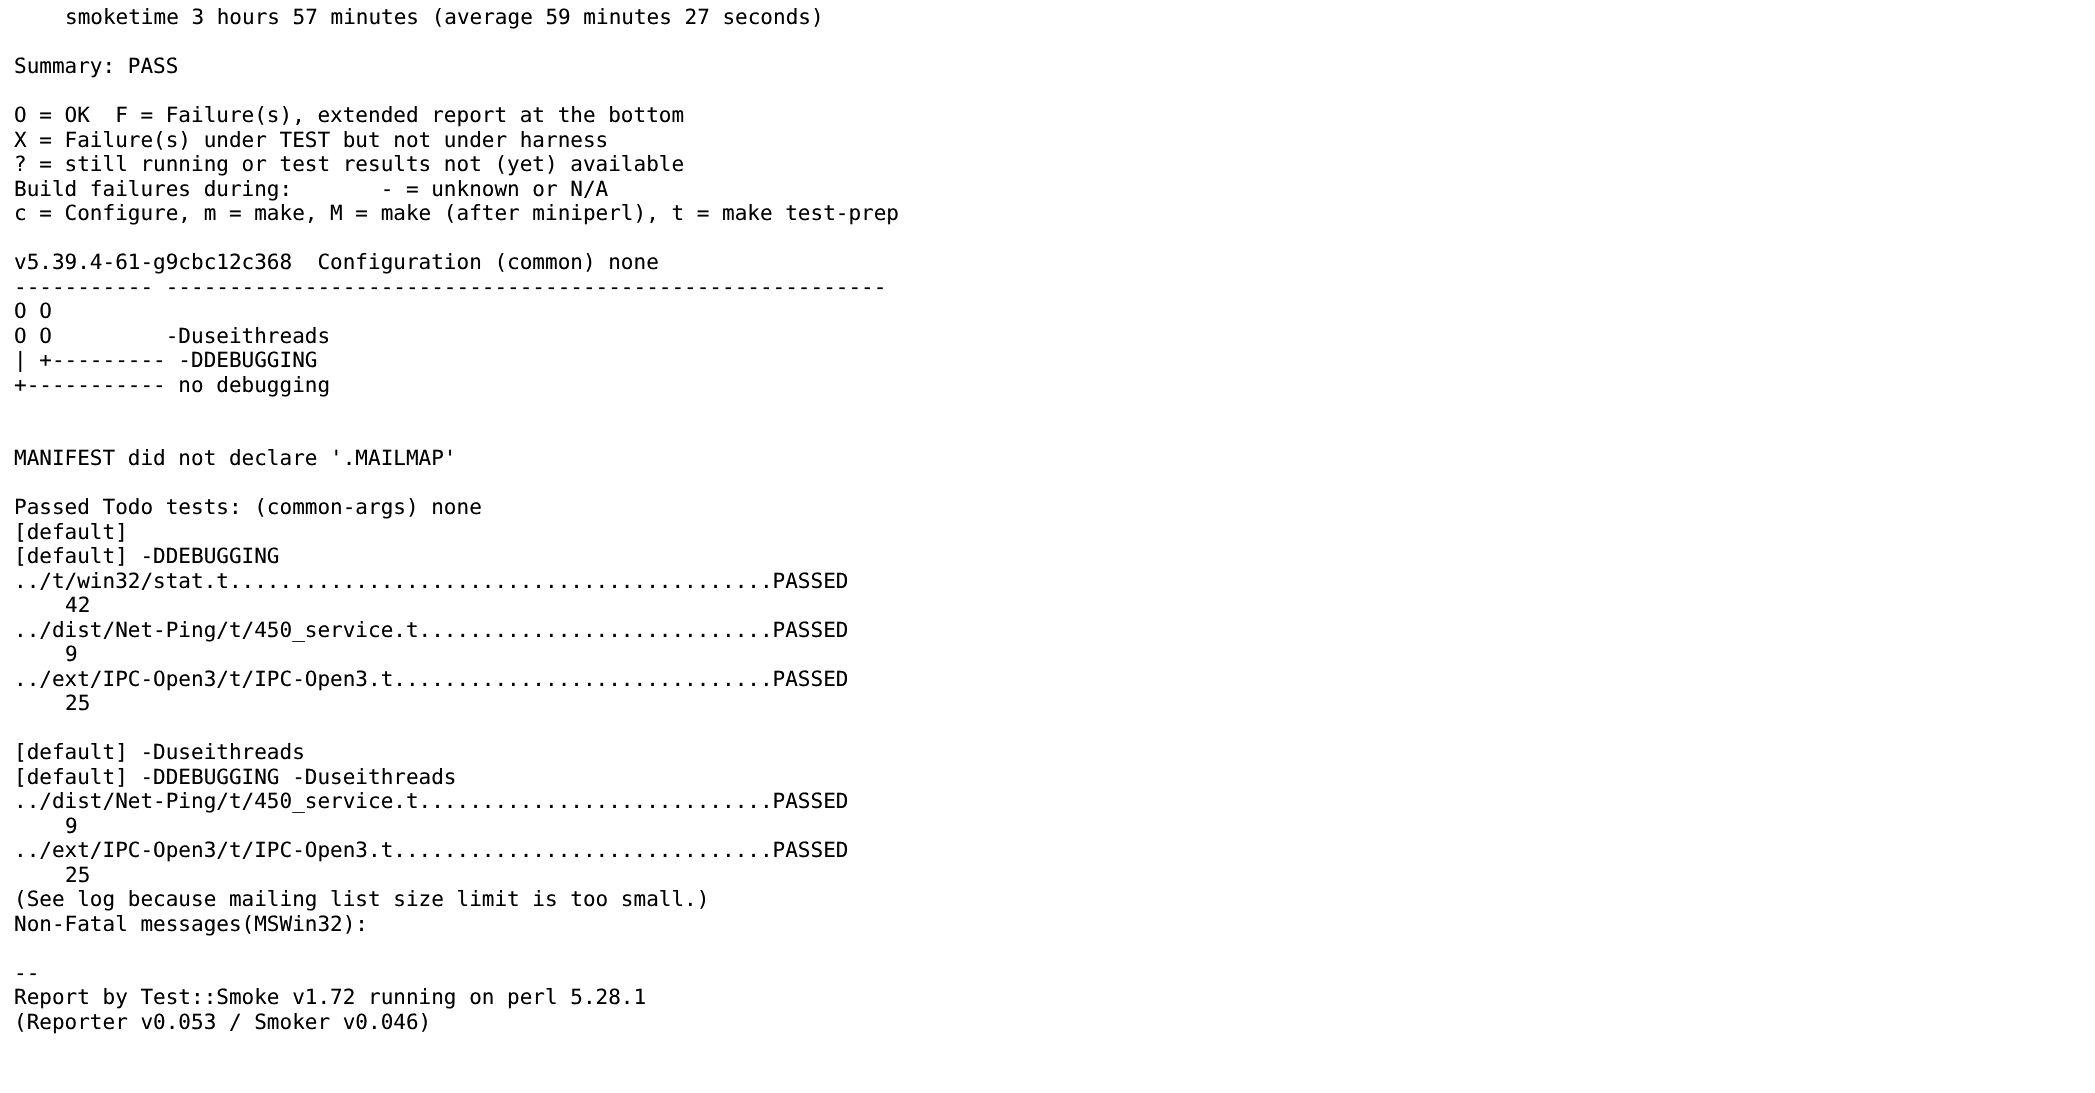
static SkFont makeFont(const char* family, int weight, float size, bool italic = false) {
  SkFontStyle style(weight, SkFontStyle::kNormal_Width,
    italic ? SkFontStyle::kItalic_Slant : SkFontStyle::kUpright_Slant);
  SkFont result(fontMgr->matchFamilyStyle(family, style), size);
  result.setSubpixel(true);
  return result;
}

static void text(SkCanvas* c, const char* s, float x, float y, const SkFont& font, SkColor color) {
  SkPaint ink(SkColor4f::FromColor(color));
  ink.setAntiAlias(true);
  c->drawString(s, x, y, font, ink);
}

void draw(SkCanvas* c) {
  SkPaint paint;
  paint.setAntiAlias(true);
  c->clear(0xffffffff);
  SkFont face1 = makeFont("DejaVu Sans Mono", 400, 21);
  text(c, "smoketime 3 hours 57 minutes (average 59 minutes 27 seconds)", 65, 24, face1, 0xff000000);
  text(c, "Summary: PASS", 14, 73, face1, 0xff000000);
  text(c, "O = OK  F = Failure(s), extended report at the bottom", 14, 122, face1, 0xff000000);
  text(c, "X = Failure(s) under TEST but not under harness", 14, 147, face1, 0xff000000);
  text(c, "? = still running or test results not (yet) available", 14, 171, face1, 0xff000000);
  text(c, "Build failures during:       - = unknown or N/A", 14, 196, face1, 0xff000000);
  text(c, "c = Configure, m = make, M = make (after miniperl), t = make test-prep", 14, 220, face1, 0xff000000);
  text(c, "v5.39.4-61-g9cbc12c368  Configuration (common) none", 14, 269, face1, 0xff000000);
  text(c, "----------- ---------------------------------------------------------", 14, 294, face1, 0xff000000);
  text(c, "O O", 14, 318, face1, 0xff000000);
  text(c, "O O         -Duseithreads", 14, 343, face1, 0xff000000);
  text(c, "| +--------- -DDEBUGGING", 14, 367, face1, 0xff000000);
  text(c, "+----------- no debugging", 14, 392, face1, 0xff000000);
  text(c, "MANIFEST did not declare '.MAILMAP'", 14, 465, face1, 0xff000000);
  text(c, "Passed Todo tests: (common-args) none", 14, 514, face1, 0xff000000);
  text(c, "[default]", 14, 539, face1, 0xff000000);
  text(c, "[default] -DDEBUGGING", 14, 563, face1, 0xff000000);
  text(c, "../t/win32/stat.t...........................................PASSED", 14, 588, face1, 0xff000000);
  text(c, "42", 65, 612, face1, 0xff000000);
  text(c, "../dist/Net-Ping/t/450_service.t............................PASSED", 14, 637, face1, 0xff000000);
  text(c, "9", 65, 661, face1, 0xff000000);
  text(c, "../ext/IPC-Open3/t/IPC-Open3.t..............................PASSED", 14, 686, face1, 0xff000000);
  text(c, "25", 65, 710, face1, 0xff000000);
  text(c, "[default] -Duseithreads", 14, 759, face1, 0xff000000);
  text(c, "[default] -DDEBUGGING -Duseithreads", 14, 784, face1, 0xff000000);
  text(c, "../dist/Net-Ping/t/450_service.t............................PASSED", 14, 808, face1, 0xff000000);
  text(c, "9", 65, 833, face1, 0xff000000);
  text(c, "../ext/IPC-Open3/t/IPC-Open3.t..............................PASSED", 14, 857, face1, 0xff000000);
  text(c, "25", 65, 882, face1, 0xff000000);
  text(c, "(See log because mailing list size limit is too small.)", 14, 906, face1, 0xff000000);
  text(c, "Non-Fatal messages(MSWin32):", 14, 931, face1, 0xff000000);
  text(c, "--", 14, 980, face1, 0xff000000);
  text(c, "Report by Test::Smoke v1.72 running on perl 5.28.1", 14, 1004, face1, 0xff000000);
  text(c, "(Reporter v0.053 / Smoker v0.046)", 14, 1029, face1, 0xff000000);
}
